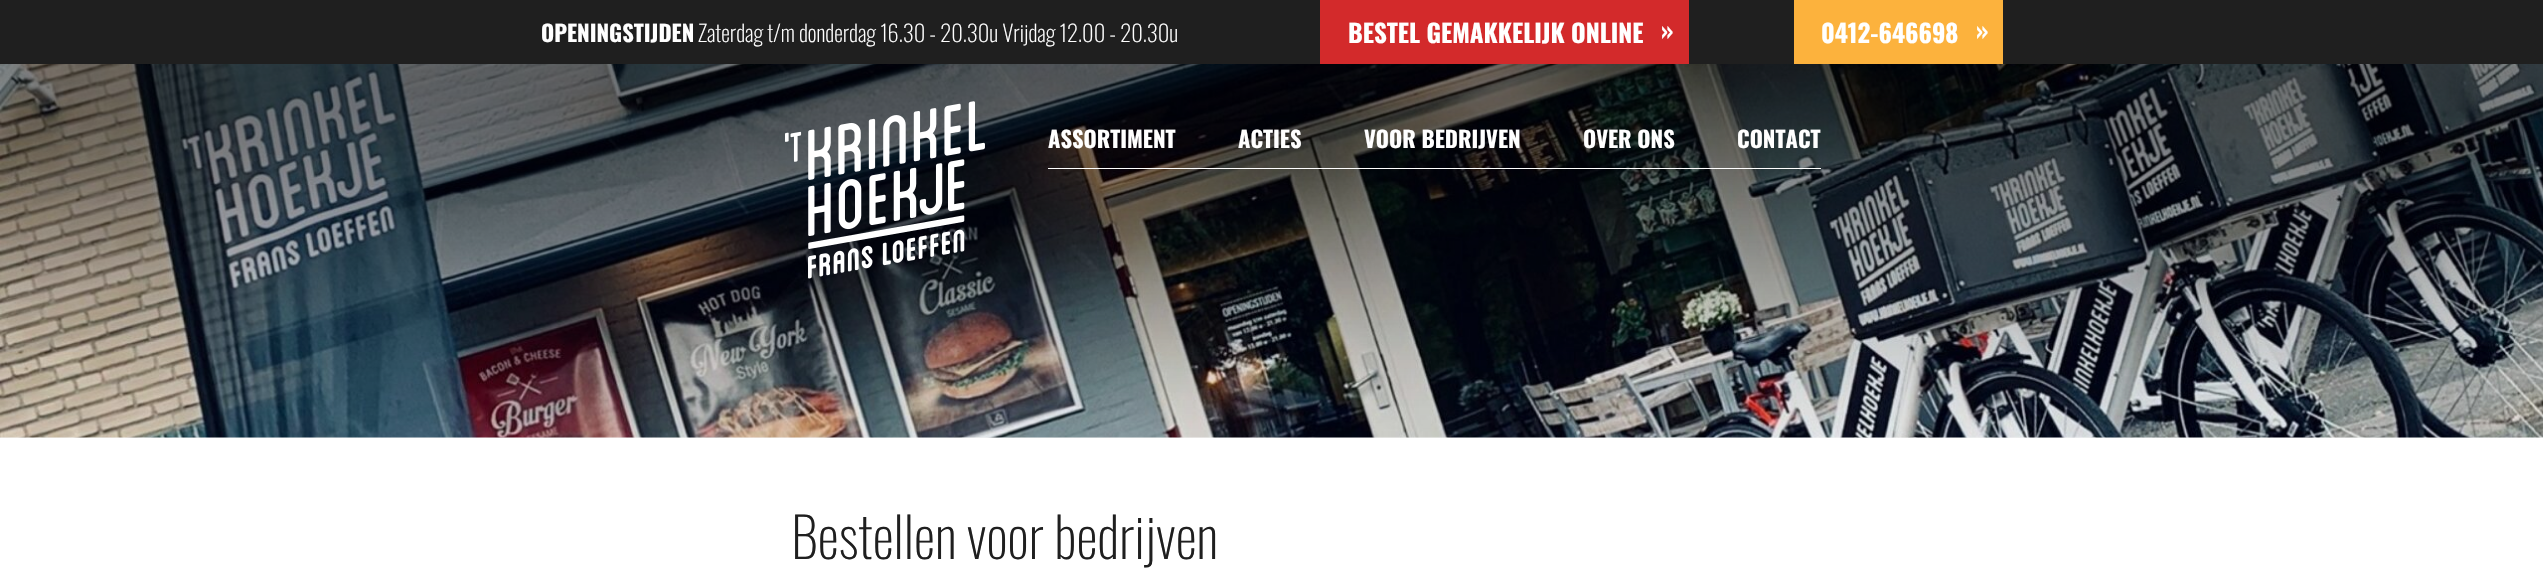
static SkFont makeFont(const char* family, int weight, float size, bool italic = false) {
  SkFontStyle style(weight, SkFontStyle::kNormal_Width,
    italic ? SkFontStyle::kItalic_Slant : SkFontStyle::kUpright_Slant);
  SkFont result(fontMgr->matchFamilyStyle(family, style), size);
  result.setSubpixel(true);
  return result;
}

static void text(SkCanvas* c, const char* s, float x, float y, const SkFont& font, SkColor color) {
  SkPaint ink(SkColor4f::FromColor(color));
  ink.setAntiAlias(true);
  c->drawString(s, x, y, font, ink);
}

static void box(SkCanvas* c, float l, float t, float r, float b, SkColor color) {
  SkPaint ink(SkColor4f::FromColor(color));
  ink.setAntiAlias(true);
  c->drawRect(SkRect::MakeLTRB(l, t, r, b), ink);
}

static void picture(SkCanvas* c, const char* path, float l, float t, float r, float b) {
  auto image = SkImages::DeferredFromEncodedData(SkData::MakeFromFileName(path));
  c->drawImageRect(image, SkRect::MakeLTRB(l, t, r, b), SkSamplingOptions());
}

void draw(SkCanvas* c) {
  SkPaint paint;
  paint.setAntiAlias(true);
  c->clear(0xffffffff);
  picture(c, "img_02.png", 0, 64, 2543, 438);
  c->save();
  c->clipRect(SkRect::MakeLTRB(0, 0, 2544, 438));
  paint.setColor(0x99000000);
  paint.setMaskFilter(SkMaskFilter::MakeBlur(kNormal_SkBlurStyle, 187.5f));
  c->drawRect(SkRect::MakeLTRB(-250, -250, 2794, 250), paint);
  paint.setMaskFilter(nullptr);
  c->restore();
  box(c, 0, 0, 2543, 64, 0xff1f1f1f);
  SkFont face1 = makeFont("Oswald", 700, 22.5f);
  text(c, "OPENINGSTIJDEN", 541, 42, face1, 0xffffffff);
  SkFont face2 = makeFont("Oswald", 200, 22.5f);
  text(c, "Zaterdag t/m donderdag 16.30 - 20.30u Vrijdag 12.00 - 20.30u", 698, 42, face2, 0xffffffff);
  box(c, 1320, 0, 1689, 64, 0xffd32a2b);
  SkFont face3 = makeFont("Oswald", 700, 25);
  text(c, "BESTEL GEMAKKELIJK ONLINE", 1348, 43, face3, 0xffffffff);
  text(c, "»", 1661, 40, face3, 0xffffffff);
  box(c, 1794, 0, 2003, 64, 0xfffcb23d);
  text(c, "0412-646698", 1821, 43, face3, 0xffffffff);
  text(c, "»", 1976, 40, face3, 0xffffffff);
  picture(c, "img_01.png", 785, 101, 985, 279);
  box(c, 1048, 168, 1821, 169, 0xffffffff);
  text(c, "ASSORTIMENT", 1048, 148, face1, 0xffffffff);
  text(c, "ACTIES", 1238, 148, face1, 0xffffffff);
  text(c, "VOOR BEDRIJVEN", 1364, 148, face1, 0xffffffff);
  text(c, "OVER ONS", 1583, 148, face1, 0xffffffff);
  text(c, "CONTACT", 1737, 148, face1, 0xffffffff);
  SkFont face4 = makeFont("Oswald", 200, 55);
  text(c, "Bestellen voor bedrijven", 791, 559, face4, 0xff1f1f1f);
}
